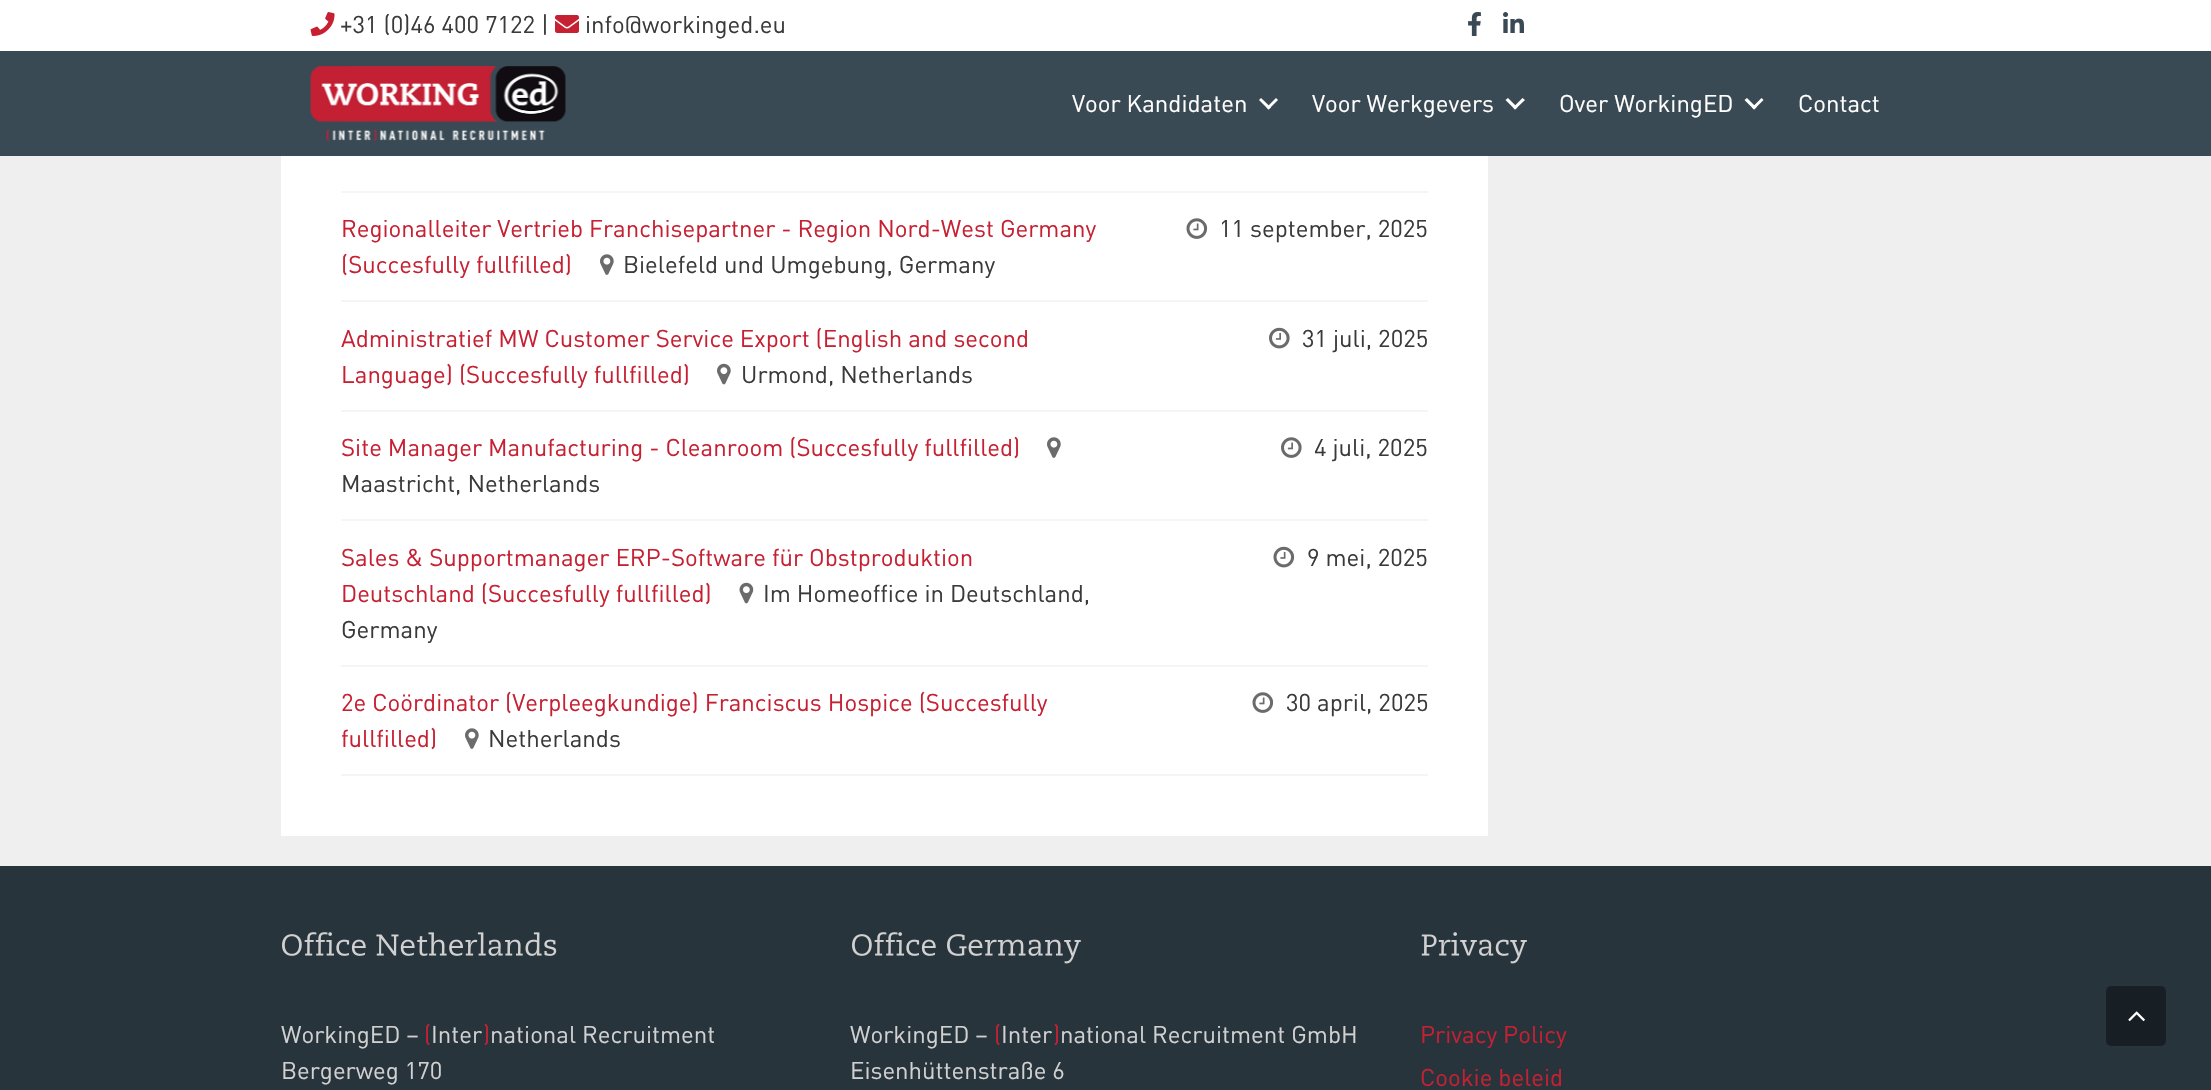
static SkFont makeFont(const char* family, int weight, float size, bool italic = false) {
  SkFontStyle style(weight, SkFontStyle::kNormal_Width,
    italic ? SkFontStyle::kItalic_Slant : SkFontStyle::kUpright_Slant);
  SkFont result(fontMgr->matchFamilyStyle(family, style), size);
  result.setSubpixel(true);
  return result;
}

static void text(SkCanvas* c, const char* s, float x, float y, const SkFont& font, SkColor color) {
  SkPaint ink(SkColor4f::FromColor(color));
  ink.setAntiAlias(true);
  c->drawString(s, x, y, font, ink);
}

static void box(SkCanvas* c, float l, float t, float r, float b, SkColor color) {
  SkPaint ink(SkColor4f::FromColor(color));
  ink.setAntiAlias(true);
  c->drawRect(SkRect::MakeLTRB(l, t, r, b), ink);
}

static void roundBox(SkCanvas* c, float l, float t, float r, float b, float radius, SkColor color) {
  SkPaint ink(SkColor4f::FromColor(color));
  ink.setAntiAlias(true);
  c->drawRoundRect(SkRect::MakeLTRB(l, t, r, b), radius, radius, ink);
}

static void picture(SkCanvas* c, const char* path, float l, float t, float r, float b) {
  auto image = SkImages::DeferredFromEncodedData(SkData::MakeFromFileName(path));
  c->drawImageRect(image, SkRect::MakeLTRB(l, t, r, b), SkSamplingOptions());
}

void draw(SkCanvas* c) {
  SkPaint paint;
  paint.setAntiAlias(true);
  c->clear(0xffefefef);
  box(c, 0, 0, 2211, 51, 0xffffffff);
  picture(c, "img_01.png", 310, 12, 335, 36);
  SkFont face1 = makeFont("DIN", 400, 24);
  text(c, "+31 (0)46 400 7122 |", 340, 33, face1, 0xff3a3a3a);
  picture(c, "img_02.png", 555, 15, 579, 33);
  text(c, "info@workinged.eu", 585, 33, face1, 0xff3a3a3a);
  picture(c, "img_03.png", 1468, 12, 1481, 36);
  picture(c, "img_04.png", 1503, 12, 1524, 33);
  box(c, 0, 51, 2211, 156, 0xff3a4a54);
  picture(c, "img_05.png", 310, 66, 566, 141);
  text(c, "Voor Kandidaten", 1072, 112, face1, 0xffffffff);
  paint.setColor(0xffffffff);
  c->drawPath(SkPathBuilder().moveTo(1276, 98).lineTo(1278, 100).lineTo(1268.5f, 109.5f).lineTo(1266.5f, 107.5f).close().detach(), paint);
  c->drawPath(SkPathBuilder().moveTo(1261, 98).lineTo(1271, 107.5f).lineTo(1268.5f, 109.5f).lineTo(1259, 100).close().detach(), paint);
  text(c, "Voor Werkgevers", 1312, 112, face1, 0xffffffff);
  c->drawPath(SkPathBuilder().moveTo(1522.5f, 98).lineTo(1525, 100).lineTo(1515, 109.5f).lineTo(1513, 107.5f).close().detach(), paint);
  c->drawPath(SkPathBuilder().moveTo(1508, 98).lineTo(1517.5f, 107.5f).lineTo(1515, 109.5f).lineTo(1505.5f, 100).close().detach(), paint);
  text(c, "Over WorkingED", 1559, 112, face1, 0xffffffff);
  c->drawPath(SkPathBuilder().moveTo(1761.5f, 98).lineTo(1763.5f, 100).lineTo(1754, 109.5f).lineTo(1752, 107.5f).close().detach(), paint);
  c->drawPath(SkPathBuilder().moveTo(1747, 98).lineTo(1756.5f, 107.5f).lineTo(1754, 109.5f).lineTo(1744.5f, 100).close().detach(), paint);
  text(c, "Contact", 1798, 112, face1, 0xffffffff);
  box(c, 281, 156, 1488, 836, 0xffffffff);
  box(c, 341, 191, 1428, 193, 0xfff5f5f5);
  box(c, 341, 300, 1428, 302, 0xfff5f5f5);
  text(c, "Regionalleiter Vertrieb Franchisepartner - Region Nord-West Germany", 341, 237, face1, 0xffc62032);
  text(c, "(Succesfully fullfilled)", 341, 273, face1, 0xffc62032);
  picture(c, "img_06.png", 600, 254, 614, 275);
  text(c, "Bielefeld und Umgebung, Germany", 623, 273, face1, 0xff3a3a3a);
  picture(c, "img_07.png", 1186, 218, 1208, 239);
  text(c, "11 september, 2025", 1219, 237, face1, 0xff3a3a3a);
  box(c, 341, 410, 1428, 412, 0xfff5f5f5);
  text(c, "Administratief MW Customer Service Export (English and second", 341, 347, face1, 0xffc62032);
  text(c, "Language) (Succesfully fullfilled)", 341, 383, face1, 0xffc62032);
  picture(c, "img_08.png", 717, 363, 731, 385);
  text(c, "Urmond, Netherlands", 741, 383, face1, 0xff3a3a3a);
  picture(c, "img_09.png", 1269, 327, 1290, 349);
  text(c, "31 juli, 2025", 1302, 347, face1, 0xff3a3a3a);
  box(c, 341, 519, 1428, 521, 0xfff5f5f5);
  text(c, "Site Manager Manufacturing - Cleanroom (Succesfully fullfilled)", 341, 456, face1, 0xffc62032);
  picture(c, "img_06.png", 1047, 437, 1061, 458);
  text(c, "Maastricht, Netherlands", 341, 492, face1, 0xff3a3a3a);
  picture(c, "img_10.png", 1281, 437, 1302, 458);
  text(c, "4 juli, 2025", 1314, 456, face1, 0xff3a3a3a);
  box(c, 341, 665, 1428, 667, 0xfff5f5f5);
  text(c, "Sales & Supportmanager ERP-Software für Obstproduktion", 341, 566, face1, 0xffc62032);
  text(c, "Deutschland (Succesfully fullfilled)", 341, 602, face1, 0xffc62032);
  picture(c, "img_11.png", 739, 582, 754, 604);
  text(c, "Im Homeoffice in Deutschland,", 763, 602, face1, 0xff3a3a3a);
  text(c, "Germany", 341, 638, face1, 0xff3a3a3a);
  picture(c, "img_12.png", 1273, 546, 1295, 568);
  text(c, "9 mei, 2025", 1307, 566, face1, 0xff3a3a3a);
  box(c, 341, 774, 1428, 776, 0xfff5f5f5);
  text(c, "2e Coördinator (Verpleegkundige) Franciscus Hospice (Succesfully", 341, 711, face1, 0xffc62032);
  text(c, "fullfilled)", 341, 747, face1, 0xffc62032);
  picture(c, "img_06.png", 465, 728, 479, 749);
  text(c, "Netherlands", 488, 747, face1, 0xff3a3a3a);
  picture(c, "img_07.png", 1252, 692, 1274, 713);
  text(c, "30 april, 2025", 1286, 711, face1, 0xff3a3a3a);
  box(c, 0, 866, 2211, 1090, 0xff28343c);
  roundBox(c, 2106, 986, 2166, 1046, 5, 0xff181f24);
  picture(c, "img_13.png", 2128, 1011, 2145, 1022);
  picture(c, "img_14.png", 282, 932, 557, 956);
  text(c, "WorkingED –", 281, 1043, face1, 0xffd1d1d1);
  text(c, "(", 424, 1043, face1, 0xffc62032);
  text(c, "Inter", 431, 1043, face1, 0xffd1d1d1);
  text(c, ")", 483, 1043, face1, 0xffc62032);
  text(c, "national Recruitment", 490, 1043, face1, 0xffd1d1d1);
  text(c, "Bergerweg 170", 281, 1079, face1, 0xffd1d1d1);
  picture(c, "img_15.png", 852, 932, 1081, 964);
  text(c, "WorkingED –", 850, 1043, face1, 0xffd1d1d1);
  text(c, "(", 994, 1043, face1, 0xffc62032);
  text(c, "Inter", 1001, 1043, face1, 0xffd1d1d1);
  text(c, ")", 1053, 1043, face1, 0xffc62032);
  text(c, "national Recruitment GmbH", 1060, 1043, face1, 0xffd1d1d1);
  text(c, "Eisenhüttenstraße 6", 850, 1079, face1, 0xffd1d1d1);
  picture(c, "img_16.png", 1421, 932, 1527, 964);
  text(c, "Privacy Policy", 1420, 1043, face1, 0xffc62032);
  text(c, "Cookie beleid", 1420, 1086, face1, 0xffc62032);
}
